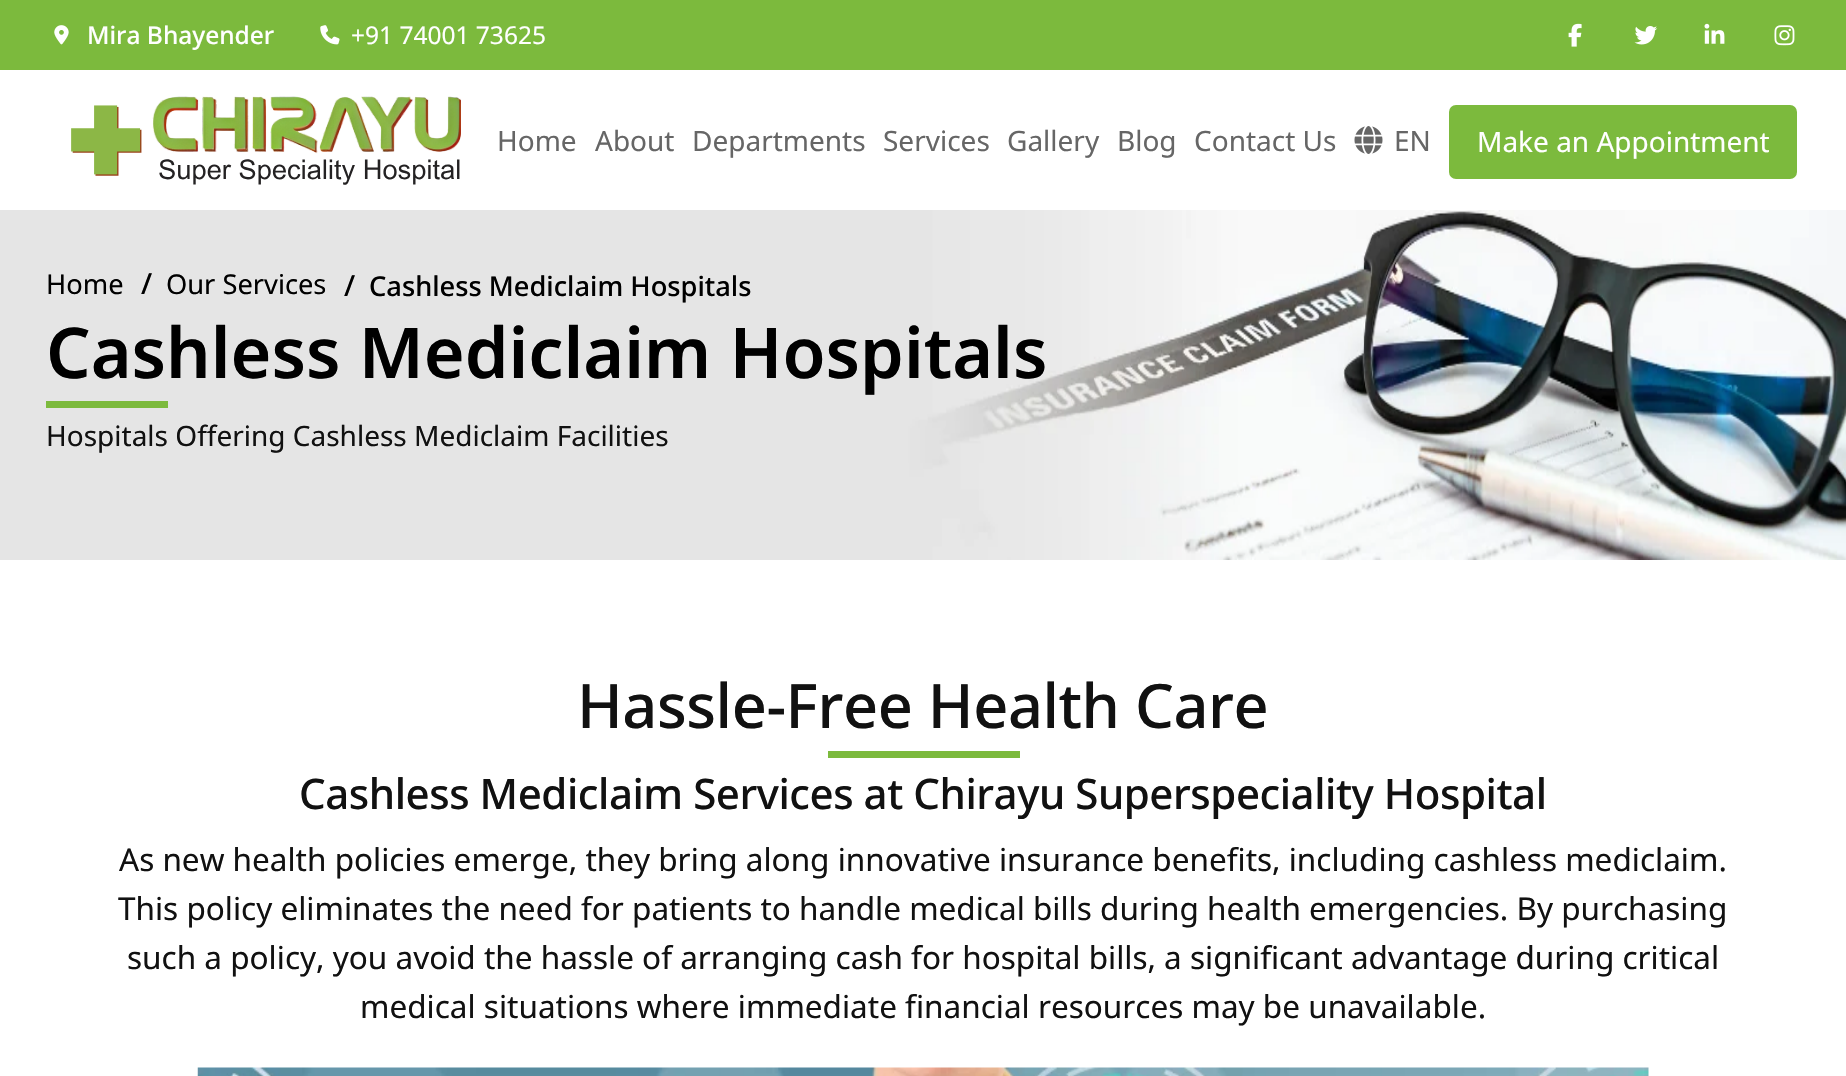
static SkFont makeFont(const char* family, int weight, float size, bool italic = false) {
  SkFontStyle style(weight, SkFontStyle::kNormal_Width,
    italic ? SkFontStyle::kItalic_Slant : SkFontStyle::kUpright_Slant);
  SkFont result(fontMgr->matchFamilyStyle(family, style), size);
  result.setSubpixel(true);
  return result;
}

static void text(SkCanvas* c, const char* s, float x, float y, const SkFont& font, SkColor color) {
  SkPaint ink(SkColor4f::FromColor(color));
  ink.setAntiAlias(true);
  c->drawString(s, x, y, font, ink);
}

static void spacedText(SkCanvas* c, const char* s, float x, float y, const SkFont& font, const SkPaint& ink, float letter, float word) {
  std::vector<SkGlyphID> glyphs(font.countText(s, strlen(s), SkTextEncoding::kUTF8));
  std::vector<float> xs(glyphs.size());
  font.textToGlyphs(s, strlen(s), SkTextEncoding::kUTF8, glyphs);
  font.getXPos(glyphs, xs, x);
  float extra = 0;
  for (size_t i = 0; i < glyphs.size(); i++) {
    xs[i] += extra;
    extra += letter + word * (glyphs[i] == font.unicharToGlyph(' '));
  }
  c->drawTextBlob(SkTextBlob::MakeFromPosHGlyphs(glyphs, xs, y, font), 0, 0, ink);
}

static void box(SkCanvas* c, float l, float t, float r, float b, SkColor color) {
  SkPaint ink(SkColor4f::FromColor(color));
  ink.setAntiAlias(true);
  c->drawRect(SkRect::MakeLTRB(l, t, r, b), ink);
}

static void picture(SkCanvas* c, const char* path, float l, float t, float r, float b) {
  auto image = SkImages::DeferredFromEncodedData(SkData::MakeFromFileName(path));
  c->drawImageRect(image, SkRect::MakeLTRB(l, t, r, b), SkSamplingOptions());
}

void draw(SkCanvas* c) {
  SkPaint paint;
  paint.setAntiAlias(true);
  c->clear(0xff7cba3d);
  picture(c, "img_01.png", 54, 25, 69, 45);
  SkFont face1 = makeFont("Noto Sans", 500, 24.5f);
  text(c, "Mira Bhayender", 87, 44, face1, 0xffffffff);
  picture(c, "img_02.png", 320, 25, 340, 45);
  SkFont face2 = makeFont("Noto Sans", 400, 24.5f);
  text(c, "+91 74001 73625", 351, 44, face2, 0xffffffff);
  picture(c, "img_03.png", 1568, 23, 1582, 47);
  picture(c, "img_04.png", 1634, 26, 1658, 45);
  picture(c, "img_05.png", 1704, 23, 1725, 44);
  picture(c, "img_06.png", 1774, 25, 1795, 46);
  box(c, 0, 70, 1846, 210, 0xffffffff);
  picture(c, "img_07.png", 71, 96, 461, 185);
  SkFont face3 = makeFont("Noto Sans", 400, 28);
  text(c, "Home", 497, 151, face3, 0xff666666);
  text(c, "About", 595, 151, face3, 0xff666666);
  text(c, "Departments", 692, 151, face3, 0xff666666);
  text(c, "Services", 883, 151, face3, 0xff666666);
  text(c, "Gallery", 1007, 151, face3, 0xff666666);
  text(c, "Blog", 1117, 151, face3, 0xff666666);
  text(c, "Contact Us", 1194, 151, face3, 0xff666666);
  picture(c, "img_08.png", 1354, 126, 1383, 154);
  text(c, "EN", 1394, 151, face3, 0xff666666);
  paint.setColor(0xff7cba3d);
  c->drawRoundRect(SkRect::MakeLTRB(1450, 106, 1796, 178), 6, 6, paint);
  paint.setStyle(SkPaint::kStroke_Style);
  paint.setStrokeWidth(2);
  c->drawRoundRect(SkRect::MakeLTRB(1450, 106, 1796, 178), 6, 6, paint);
  text(c, "Make an Appointment", 1477, 152, face3, 0xffffffff);
  picture(c, "img_09.png", 0, 210, 1846, 560);
  SkFont face4 = makeFont("Noto Sans", 400, 27.25f);
  text(c, "Home", 46, 294, face4, 0xff000000);
  SkFont face5 = makeFont("Noto Sans", 500, 29);
  text(c, "/", 141, 294, face5, 0xff000000);
  text(c, "Our Services", 166, 294, face4, 0xff000000);
  text(c, "/", 344, 296, face5, 0xff000000);
  SkFont face6 = makeFont("Noto Sans", 500, 27.25f);
  text(c, "Cashless Mediclaim Hospitals", 369, 296, face6, 0xff000000);
  SkFont face7 = makeFont("Noto Sans", 600, 70);
  text(c, "Cashless Mediclaim Hospitals", 46, 378, face7, 0xff000000);
  box(c, 46, 401, 168, 408, 0xff7cba3d);
  text(c, "Hospitals Offering Cashless Mediclaim Facilities", 46, 446, face3, 0xff111111);
  box(c, 0, 560, 1846, 1076, 0xffffffff);
  SkFont face8 = makeFont("Noto Sans", 500, 61.25f);
  paint.setStyle(SkPaint::kFill_Style);
  paint.setColor(0xff111111);
  spacedText(c, "Hassle-Free Health Care", 577, 728, face8, paint, -0.45f, 0);
  box(c, 828, 751, 1020, 758, 0xff7cba3d);
  SkFont face9 = makeFont("Noto Sans", 500, 42);
  spacedText(c, "Cashless Mediclaim Services at Chirayu Superspeciality Hospital", 299, 809, face9, paint, -0.45f, 0);
  SkFont face10 = makeFont("Noto Sans", 400, 31.5f);
  text(c, "As new health policies emerge, they bring along innovative insurance benefits, including cashless mediclaim.", 119, 871, face10, 0xff111111);
  text(c, "This policy eliminates the need for patients to handle medical bills during health emergencies. By purchasing", 118, 920, face10, 0xff111111);
  text(c, "such a policy, you avoid the hassle of arranging cash for hospital bills, a significant advantage during critical", 127, 969, face10, 0xff111111);
  text(c, "medical situations where immediate financial resources may be unavailable.", 360, 1018, face10, 0xff111111);
  picture(c, "img_10.png", 197, 1067, 1649, 1076);
}
